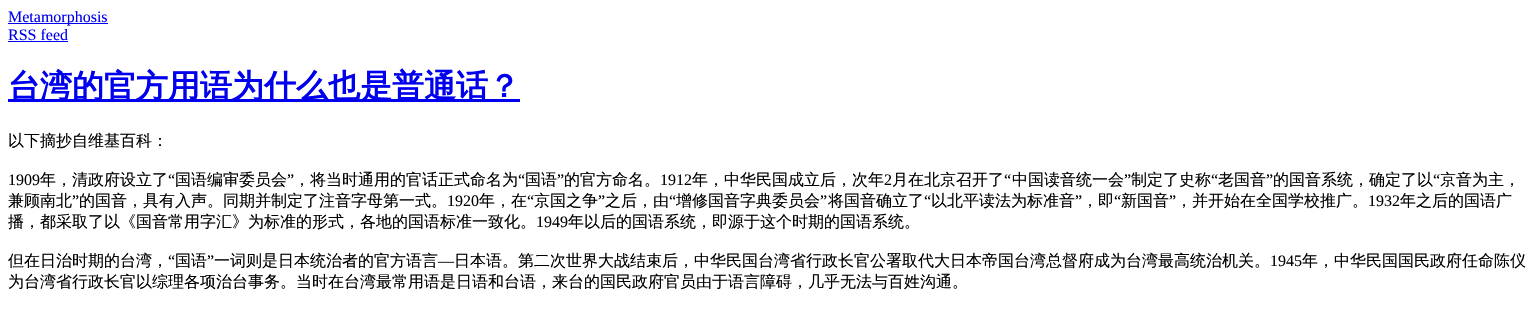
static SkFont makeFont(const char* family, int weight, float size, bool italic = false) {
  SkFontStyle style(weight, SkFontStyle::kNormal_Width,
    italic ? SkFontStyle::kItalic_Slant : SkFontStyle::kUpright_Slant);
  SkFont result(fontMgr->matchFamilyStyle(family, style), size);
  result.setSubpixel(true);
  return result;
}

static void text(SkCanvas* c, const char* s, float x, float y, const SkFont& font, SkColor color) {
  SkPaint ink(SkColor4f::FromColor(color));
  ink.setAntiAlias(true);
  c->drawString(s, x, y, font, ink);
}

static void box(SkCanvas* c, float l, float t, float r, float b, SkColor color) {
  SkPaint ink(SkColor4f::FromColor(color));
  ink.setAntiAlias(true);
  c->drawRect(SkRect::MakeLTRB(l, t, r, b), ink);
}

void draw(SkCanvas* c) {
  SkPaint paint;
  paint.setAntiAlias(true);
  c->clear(0xffffffff);
  box(c, 8, 23, 108, 24, 0xff0000ee);
  SkFont face1 = makeFont("Liberation Serif", 400, 16);
  text(c, "Metamorphosis", 8, 22, face1, 0xff0000ee);
  text(c, "RSS feed", 8, 40, face1, 0xff0000ee);
  box(c, 8, 41, 68, 42, 0xff0000ee);
  box(c, 8, 99, 520, 102, 0xff0000ee);
  SkFont face2 = makeFont("WenQuanYi Zen Hei", 700, 32);
  text(c, "台湾的官方用语为什么也是普通话？", 8, 97, face2, 0xff0000ee);
  SkFont face3 = makeFont("WenQuanYi Zen Hei", 500, 16);
  text(c, "以下摘抄自维基百科：", 8, 146, face3, 0xff000000);
  text(c, "1909", 8, 185, face1, 0xff000000);
  text(c, "年，清政府设立了", 40, 185, face3, 0xff000000);
  text(c, "“", 168, 185, face1, 0xff000000);
  text(c, "国语编审委员会", 175, 185, face3, 0xff000000);
  text(c, "”", 287, 185, face1, 0xff000000);
  text(c, "，将当时通用的官话正式命名为", 294, 185, face3, 0xff000000);
  text(c, "“", 518, 185, face1, 0xff000000);
  text(c, "国语", 525, 185, face3, 0xff000000);
  text(c, "”", 557, 185, face1, 0xff000000);
  text(c, "的官方命名。", 564, 185, face3, 0xff000000);
  text(c, "1912", 660, 185, face1, 0xff000000);
  text(c, "年，中华民国成立后，次年", 692, 185, face3, 0xff000000);
  text(c, "2", 884, 185, face1, 0xff000000);
  text(c, "月在北京召开了", 892, 185, face3, 0xff000000);
  text(c, "“", 1004, 185, face1, 0xff000000);
  text(c, "中国读音统一会", 1012, 185, face3, 0xff000000);
  text(c, "”", 1124, 185, face1, 0xff000000);
  text(c, "制定了史称", 1131, 185, face3, 0xff000000);
  text(c, "“", 1211, 185, face1, 0xff000000);
  text(c, "老国音", 1218, 185, face3, 0xff000000);
  text(c, "”", 1266, 185, face1, 0xff000000);
  text(c, "的国音系统，确定了以", 1273, 185, face3, 0xff000000);
  text(c, "“", 1433, 185, face1, 0xff000000);
  text(c, "京音为主，", 1440, 185, face3, 0xff000000);
  text(c, "兼顾南北", 8, 206, face3, 0xff000000);
  text(c, "”", 72, 206, face1, 0xff000000);
  text(c, "的国音，具有入声。同期并制定了注音字母第一式。", 79, 206, face3, 0xff000000);
  text(c, "1920", 447, 206, face1, 0xff000000);
  text(c, "年，在", 479, 206, face3, 0xff000000);
  text(c, "“", 527, 206, face1, 0xff000000);
  text(c, "京国之争", 534, 206, face3, 0xff000000);
  text(c, "”", 598, 206, face1, 0xff000000);
  text(c, "之后，由", 605, 206, face3, 0xff000000);
  text(c, "“", 669, 206, face1, 0xff000000);
  text(c, "增修国音字典委员会", 676, 206, face3, 0xff000000);
  text(c, "”", 820, 206, face1, 0xff000000);
  text(c, "将国音确立了", 828, 206, face3, 0xff000000);
  text(c, "“", 924, 206, face1, 0xff000000);
  text(c, "以北平读法为标准音", 931, 206, face3, 0xff000000);
  text(c, "”", 1075, 206, face1, 0xff000000);
  text(c, "，即", 1082, 206, face3, 0xff000000);
  text(c, "“", 1114, 206, face1, 0xff000000);
  text(c, "新国音", 1121, 206, face3, 0xff000000);
  text(c, "”", 1169, 206, face1, 0xff000000);
  text(c, "，并开始在全国学校推广。", 1176, 206, face3, 0xff000000);
  text(c, "1932", 1368, 206, face1, 0xff000000);
  text(c, "年之后的国语广", 1400, 206, face3, 0xff000000);
  text(c, "播，都采取了以《国音常用字汇》为标准的形式，各地的国语标准一致化。", 8, 227, face3, 0xff000000);
  text(c, "1949", 536, 227, face1, 0xff000000);
  text(c, "年以后的国语系统，即源于这个时期的国语系统。", 568, 227, face3, 0xff000000);
  text(c, "但在日治时期的台湾，", 8, 266, face3, 0xff000000);
  text(c, "“", 168, 266, face1, 0xff000000);
  text(c, "国语", 175, 266, face3, 0xff000000);
  text(c, "”", 207, 266, face1, 0xff000000);
  text(c, "一词则是日本统治者的官方语言", 214, 266, face3, 0xff000000);
  text(c, "—", 438, 266, face1, 0xff000000);
  text(c, "日本语。第二次世界大战结束后，中华民国台湾省行政长官公署取代大日本帝国台湾总督府成为台湾最高统治机关。", 454, 266, face3, 0xff000000);
  text(c, "1945", 1270, 266, face1, 0xff000000);
  text(c, "年，中华民国国民政府任命陈仪", 1302, 266, face3, 0xff000000);
  text(c, "为台湾省行政长官以综理各项治台事务。当时在台湾最常用语是日语和台语，来台的国民政府官员由于语言障碍，几乎无法与百姓沟通。", 8, 287, face3, 0xff000000);
}
